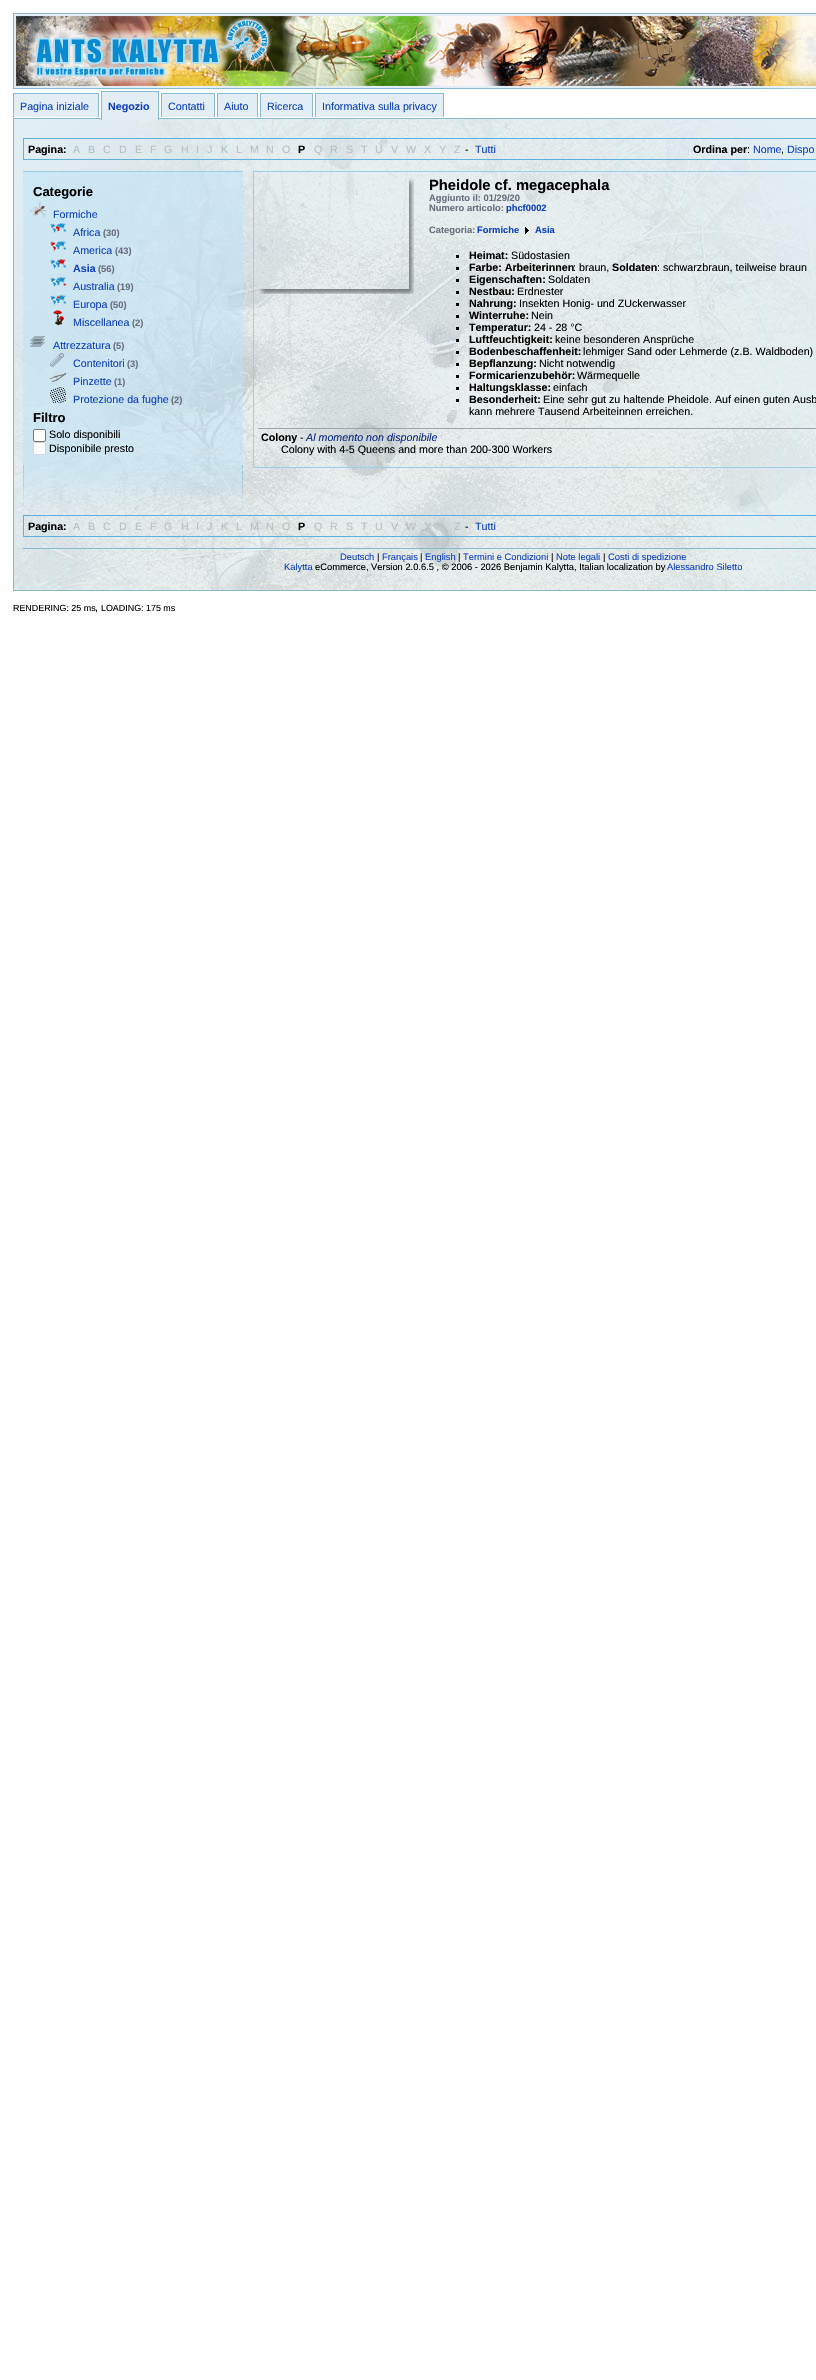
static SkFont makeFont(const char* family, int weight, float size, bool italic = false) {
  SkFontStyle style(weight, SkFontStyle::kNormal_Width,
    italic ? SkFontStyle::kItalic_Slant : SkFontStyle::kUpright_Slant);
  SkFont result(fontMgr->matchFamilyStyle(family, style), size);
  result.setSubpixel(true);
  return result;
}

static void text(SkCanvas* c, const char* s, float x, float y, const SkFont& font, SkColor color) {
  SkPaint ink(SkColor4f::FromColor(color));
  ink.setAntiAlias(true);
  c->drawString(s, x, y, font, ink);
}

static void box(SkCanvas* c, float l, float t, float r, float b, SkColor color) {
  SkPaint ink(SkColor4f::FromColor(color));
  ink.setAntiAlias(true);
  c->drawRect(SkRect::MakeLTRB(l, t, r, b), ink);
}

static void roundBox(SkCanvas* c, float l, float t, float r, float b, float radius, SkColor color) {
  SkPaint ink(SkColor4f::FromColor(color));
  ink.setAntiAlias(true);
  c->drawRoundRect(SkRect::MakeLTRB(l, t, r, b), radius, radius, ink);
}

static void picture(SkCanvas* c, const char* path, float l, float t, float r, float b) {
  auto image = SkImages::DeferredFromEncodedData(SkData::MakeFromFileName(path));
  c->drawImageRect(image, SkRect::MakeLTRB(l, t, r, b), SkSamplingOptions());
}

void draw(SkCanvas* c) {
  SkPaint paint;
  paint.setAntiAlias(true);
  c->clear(0xffffffff);
  paint.setColor(0xffe2eef3);
  c->drawRect(SkRect::MakeLTRB(13.5f, 13.5f, 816.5f, 88.5f), paint);
  paint.setStyle(SkPaint::kStroke_Style);
  paint.setStrokeWidth(1);
  paint.setColor(0xff89b9d0);
  c->drawRect(SkRect::MakeLTRB(13.5f, 13.5f, 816.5f, 88.5f), paint);
  picture(c, "img_01.png", 16, 16, 816, 86);
  picture(c, "img_02.png", 27, 16, 272, 85);
  picture(c, "img_03.png", 759, 16, 816, 89);
  box(c, 14, 94, 98, 117, 0xffe2eef3);
  SkFont face1 = makeFont("Liberation Sans", 400, 10.7f);
  text(c, "Pagina iniziale", 20, 110, face1, 0xff0f41bf);
  box(c, 13, 93, 99, 94, 0xff89b9d0);
  box(c, 13, 93, 14, 117, 0xff89b9d0);
  box(c, 98, 93, 99, 117, 0xff89b9d0);
  picture(c, "img_04.png", 14, 119, 816, 590);
  c->drawRect(SkRect::MakeLTRB(13.5f, 118.5f, 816.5f, 590.5f), paint);
  box(c, 102, 92, 158, 120, 0xffe2eef3);
  SkFont face2 = makeFont("Liberation Sans", 700, 10.7f);
  text(c, "Negozio", 108, 110, face2, 0xff0f41bf);
  box(c, 101, 91, 159, 92, 0xff89b9d0);
  box(c, 101, 91, 102, 120, 0xff89b9d0);
  box(c, 162, 94, 214, 117, 0xffe2eef3);
  text(c, "Contatti", 168, 110, face1, 0xff0f41bf);
  box(c, 158, 91, 159, 120, 0xff89b9d0);
  box(c, 161, 93, 215, 94, 0xff89b9d0);
  box(c, 161, 93, 162, 117, 0xff89b9d0);
  box(c, 218, 94, 257, 117, 0xffe2eef3);
  text(c, "Aiuto", 224, 110, face1, 0xff0f41bf);
  box(c, 214, 93, 215, 117, 0xff89b9d0);
  box(c, 217, 93, 258, 94, 0xff89b9d0);
  box(c, 217, 93, 218, 117, 0xff89b9d0);
  box(c, 257, 93, 258, 117, 0xff89b9d0);
  box(c, 261, 94, 312, 117, 0xffe2eef3);
  text(c, "Ricerca", 267, 110, face1, 0xff0f41bf);
  box(c, 260, 93, 313, 94, 0xff89b9d0);
  box(c, 260, 93, 261, 117, 0xff89b9d0);
  box(c, 312, 93, 313, 117, 0xff89b9d0);
  box(c, 316, 94, 443, 117, 0xffe2eef3);
  text(c, "Informativa sulla privacy", 322, 110, face1, 0xff0f41bf);
  box(c, 315, 93, 444, 94, 0xff89b9d0);
  box(c, 443, 93, 444, 117, 0xff89b9d0);
  box(c, 315, 93, 316, 117, 0xff89b9d0);
  paint.setColor(0xff5fb0dc);
  c->drawRect(SkRect::MakeLTRB(23.5f, 138.5f, 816.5f, 159.5f), paint);
  text(c, "Pagina:", 28, 153, face2, 0xff000000);
  text(c, "A", 73, 153, face1, 0xffb5bec1);
  text(c, "B", 88, 153, face1, 0xffb5bec1);
  text(c, "C", 103, 153, face1, 0xffb5bec1);
  text(c, "D", 119, 153, face1, 0xffb5bec1);
  text(c, "E", 135, 153, face1, 0xffb5bec1);
  text(c, "F", 150, 153, face1, 0xffb5bec1);
  text(c, "G", 164, 153, face1, 0xffb5bec1);
  text(c, "H", 181, 153, face1, 0xffb5bec1);
  text(c, "I", 196, 153, face1, 0xffb5bec1);
  text(c, "J", 207, 153, face1, 0xffb5bec1);
  text(c, "K", 221, 153, face1, 0xffb5bec1);
  text(c, "L", 236, 153, face1, 0xffb5bec1);
  text(c, "M", 250, 153, face1, 0xffb5bec1);
  text(c, "N", 266, 153, face1, 0xffb5bec1);
  text(c, "O", 282, 153, face1, 0xffb5bec1);
  text(c, "P", 298, 153, face2, 0xff000000);
  text(c, "Q", 314, 153, face1, 0xffb5bec1);
  text(c, "R", 330, 153, face1, 0xffb5bec1);
  text(c, "S", 346, 153, face1, 0xffb5bec1);
  text(c, "T", 361, 153, face1, 0xffb5bec1);
  text(c, "U", 375, 153, face1, 0xffb5bec1);
  text(c, "V", 391, 153, face1, 0xffb5bec1);
  text(c, "W", 406, 153, face1, 0xffb5bec1);
  text(c, "X", 424, 153, face1, 0xffb5bec1);
  text(c, "Y", 439, 153, face1, 0xffb5bec1);
  text(c, "Z", 454, 153, face1, 0xffb5bec1);
  text(c, "-", 465, 153, face1, 0xff000000);
  text(c, "Tutti", 475, 153, face1, 0xff0f41bf);
  text(c, "Ordina per", 693, 153, face2, 0xff000000);
  text(c, ":", 747, 153, face1, 0xff000000);
  text(c, "Nome", 753, 153, face1, 0xff0f41bf);
  text(c, ",", 781, 153, face1, 0xff000000);
  text(c, "Dispo", 787, 153, face1, 0xff0f41bf);
  box(c, 23, 171, 243, 172, 0xff9ecee7);
  box(c, 23, 172, 243, 465, 0x80bbe3f9);
  SkFont face3 = makeFont("Liberation Sans", 700, 13);
  text(c, "Categorie", 33, 196, face3, 0xff000000);
  picture(c, "img_05.png", 30, 202, 46, 218);
  text(c, "Formiche", 53, 218, face1, 0xff0f41bf);
  picture(c, "img_06.png", 50, 223, 66, 233);
  text(c, "Africa", 73, 236, face1, 0xff0f41bf);
  SkFont face4 = makeFont("Liberation Sans", 700, 9.35f);
  text(c, "(30)", 103, 236, face4, 0xff696e7d);
  picture(c, "img_07.png", 50, 241, 66, 251);
  text(c, "America", 73, 254, face1, 0xff0f41bf);
  text(c, "(43)", 115, 254, face4, 0xff696e7d);
  picture(c, "img_08.png", 50, 259, 66, 269);
  text(c, "Asia", 73, 272, face2, 0xff0f41bf);
  text(c, "(56)", 98, 272, face4, 0xff696e7d);
  picture(c, "img_09.png", 50, 277, 66, 287);
  text(c, "Australia", 73, 290, face1, 0xff0f41bf);
  text(c, "(19)", 117, 290, face4, 0xff696e7d);
  picture(c, "img_10.png", 50, 295, 66, 305);
  text(c, "Europa", 73, 308, face1, 0xff0f41bf);
  text(c, "(50)", 110, 308, face4, 0xff696e7d);
  picture(c, "img_11.png", 53, 310, 64, 326);
  text(c, "Miscellanea", 73, 326, face1, 0xff0f41bf);
  text(c, "(2)", 132, 326, face4, 0xff696e7d);
  picture(c, "img_12.png", 30, 336, 45, 347);
  text(c, "Attrezzatura", 53, 349, face1, 0xff0f41bf);
  text(c, "(5)", 113, 349, face4, 0xff696e7d);
  picture(c, "img_13.png", 50, 353, 64, 367);
  text(c, "Contenitori", 73, 367, face1, 0xff0f41bf);
  text(c, "(3)", 127, 367, face4, 0xff696e7d);
  picture(c, "img_14.png", 50, 373, 66, 382);
  text(c, "Pinzette", 73, 385, face1, 0xff0f41bf);
  text(c, "(1)", 114, 385, face4, 0xff696e7d);
  picture(c, "img_15.png", 50, 387, 66, 403);
  text(c, "Protezione da fughe", 73, 403, face1, 0xff0f41bf);
  text(c, "(2)", 171, 403, face4, 0xff696e7d);
  text(c, "Filtro", 33, 422, face3, 0xff000000);
  paint.setStyle(SkPaint::kFill_Style);
  paint.setColor(0xffffffff);
  c->drawRoundRect(SkRect::MakeLTRB(33.5f, 429.5f, 45.5f, 441.5f), 1.5f, 1.5f, paint);
  paint.setStyle(SkPaint::kStroke_Style);
  paint.setColor(0xff767676);
  c->drawRoundRect(SkRect::MakeLTRB(33.5f, 429.5f, 45.5f, 441.5f), 1.5f, 1.5f, paint);
  text(c, "Solo disponibili", 49, 438, face1, 0xff000000);
  roundBox(c, 33, 442, 46, 455, 2, 0xffffffff);
  paint.setColor(0x4d767676);
  c->drawRoundRect(SkRect::MakeLTRB(33.5f, 442.5f, 45.5f, 454.5f), 1.5f, 1.5f, paint);
  text(c, "Disponibile presto", 49, 452, face1, 0xff000000);
  picture(c, "img_16.png", 23, 465, 243, 512);
  paint.setColor(0xff9ecee7);
  c->drawRect(SkRect::MakeLTRB(253.5f, 171.5f, 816.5f, 467.5f), paint);
  picture(c, "img_17.png", 259, 178, 414, 294);
  SkFont face5 = makeFont("Liberation Sans", 700, 14.75f);
  text(c, "Pheidole cf. megacephala", 429, 190, face5, 0xff000000);
  text(c, "Aggiunto il: 01/29/20", 429, 201, face4, 0xff696e7d);
  text(c, "Numero articolo:", 429, 211, face4, 0xff696e7d);
  text(c, "phcf0002", 506, 211, face4, 0xff0f41bf);
  text(c, "Categoria:", 429, 233, face4, 0xff696e7d);
  text(c, "Formiche", 477, 233, face4, 0xff0f41bf);
  picture(c, "img_18.png", 525, 227, 529, 234);
  text(c, "Asia", 535, 233, face4, 0xff0f41bf);
  box(c, 456, 255, 459, 258, 0xff000000);
  text(c, "Heimat:", 469, 259, face2, 0xff000000);
  text(c, "Südostasien", 511, 259, face1, 0xff000000);
  box(c, 456, 267, 459, 270, 0xff000000);
  text(c, "Farbe: Arbeiterinnen", 469, 271, face2, 0xff000000);
  text(c, ": braun,", 573, 271, face1, 0xff000000);
  text(c, "Soldaten", 612, 271, face2, 0xff000000);
  text(c, ": schwarzbraun, teilweise braun", 657, 271, face1, 0xff000000);
  box(c, 456, 279, 459, 282, 0xff000000);
  text(c, "Eigenschaften:", 469, 283, face2, 0xff000000);
  text(c, "Soldaten", 548, 283, face1, 0xff000000);
  box(c, 456, 291, 459, 294, 0xff000000);
  text(c, "Nestbau:", 469, 295, face2, 0xff000000);
  text(c, "Erdnester", 517, 295, face1, 0xff000000);
  box(c, 456, 303, 459, 306, 0xff000000);
  text(c, "Nahrung:", 469, 307, face2, 0xff000000);
  text(c, "Insekten Honig- und ZUckerwasser", 519, 307, face1, 0xff000000);
  box(c, 456, 315, 459, 318, 0xff000000);
  text(c, "Winterruhe:", 469, 319, face2, 0xff000000);
  text(c, "Nein", 531, 319, face1, 0xff000000);
  box(c, 456, 327, 459, 330, 0xff000000);
  text(c, "Temperatur:", 469, 331, face2, 0xff000000);
  text(c, "24 - 28 °C", 534, 331, face1, 0xff000000);
  box(c, 456, 339, 459, 342, 0xff000000);
  text(c, "Luftfeuchtigkeit:", 469, 343, face2, 0xff000000);
  text(c, "keine besonderen Ansprüche", 555, 343, face1, 0xff000000);
  box(c, 456, 351, 459, 354, 0xff000000);
  text(c, "Bodenbeschaffenheit:", 469, 355, face2, 0xff000000);
  text(c, "lehmiger Sand oder Lehmerde (z.B. Waldboden)", 583, 355, face1, 0xff000000);
  box(c, 456, 363, 459, 366, 0xff000000);
  text(c, "Bepflanzung:", 469, 367, face2, 0xff000000);
  text(c, "Nicht notwendig", 539, 367, face1, 0xff000000);
  box(c, 456, 375, 459, 378, 0xff000000);
  text(c, "Formicarienzubehör:", 469, 379, face2, 0xff000000);
  text(c, "Wärmequelle", 577, 379, face1, 0xff000000);
  box(c, 456, 387, 459, 390, 0xff000000);
  text(c, "Haltungsklasse:", 469, 391, face2, 0xff000000);
  text(c, "einfach", 553, 391, face1, 0xff000000);
  box(c, 456, 399, 459, 402, 0xff000000);
  text(c, "Besonderheit:", 469, 403, face2, 0xff000000);
  text(c, "Eine sehr gut zu haltende Pheidole. Auf einen guten Ausb", 543, 403, face1, 0xff000000);
  text(c, "kann mehrere Tausend Arbeiteinnen erreichen.", 469, 415, face1, 0xff000000);
  box(c, 258, 428, 816, 429, 0xff9ea6a9);
  text(c, "Colony", 261, 441, face2, 0xff000000);
  text(c, "-", 300, 441, face1, 0xff000000);
  SkFont face6 = makeFont("Liberation Sans", 400, 10.7f, true);
  text(c, "Al momento non disponibile", 306, 441, face6, 0xff0a277d);
  text(c, "Colony with 4-5 Queens and more than 200-300 Workers", 281, 453, face1, 0xff000000);
  paint.setColor(0xff5fb0dc);
  c->drawRect(SkRect::MakeLTRB(23.5f, 515.5f, 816.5f, 536.5f), paint);
  text(c, "Pagina:", 28, 530, face2, 0xff000000);
  text(c, "A", 73, 530, face1, 0xffb5bec1);
  text(c, "B", 88, 530, face1, 0xffb5bec1);
  text(c, "C", 103, 530, face1, 0xffb5bec1);
  text(c, "D", 119, 530, face1, 0xffb5bec1);
  text(c, "E", 135, 530, face1, 0xffb5bec1);
  text(c, "F", 150, 530, face1, 0xffb5bec1);
  text(c, "G", 164, 530, face1, 0xffb5bec1);
  text(c, "H", 181, 530, face1, 0xffb5bec1);
  text(c, "I", 196, 530, face1, 0xffb5bec1);
  text(c, "J", 207, 530, face1, 0xffb5bec1);
  text(c, "K", 221, 530, face1, 0xffb5bec1);
  text(c, "L", 236, 530, face1, 0xffb5bec1);
  text(c, "M", 250, 530, face1, 0xffb5bec1);
  text(c, "N", 266, 530, face1, 0xffb5bec1);
  text(c, "O", 282, 530, face1, 0xffb5bec1);
  text(c, "P", 298, 530, face2, 0xff000000);
  text(c, "Q", 314, 530, face1, 0xffb5bec1);
  text(c, "R", 330, 530, face1, 0xffb5bec1);
  text(c, "S", 346, 530, face1, 0xffb5bec1);
  text(c, "T", 361, 530, face1, 0xffb5bec1);
  text(c, "U", 375, 530, face1, 0xffb5bec1);
  text(c, "V", 391, 530, face1, 0xffb5bec1);
  text(c, "W", 406, 530, face1, 0xffb5bec1);
  text(c, "X", 424, 530, face1, 0xffb5bec1);
  text(c, "Z", 454, 530, face1, 0xffb5bec1);
  text(c, "-", 465, 530, face1, 0xff000000);
  text(c, "Tutti", 475, 530, face1, 0xff0f41bf);
  box(c, 23, 548, 816, 549, 0xff89b9d0);
  SkFont face7 = makeFont("Liberation Sans", 400, 9.35f);
  text(c, "Deutsch", 340, 560, face7, 0xff0f41bf);
  text(c, "|", 377, 560, face7, 0xff000000);
  text(c, "Français", 382, 560, face7, 0xff0f41bf);
  text(c, "|", 420, 560, face7, 0xff000000);
  text(c, "English", 425, 560, face7, 0xff0f41bf);
  text(c, "|", 458, 560, face7, 0xff000000);
  text(c, "Termini e Condizioni", 463, 560, face7, 0xff0f41bf);
  text(c, "|", 551, 560, face7, 0xff000000);
  text(c, "Note legali", 556, 560, face7, 0xff0f41bf);
  text(c, "|", 603, 560, face7, 0xff000000);
  text(c, "Costi di spedizione", 608, 560, face7, 0xff0f41bf);
  text(c, "Kalytta", 284, 570, face7, 0xff0f41bf);
  text(c, "eCommerce, Version 2.0.6.5 , © 2006 - 2026 Benjamin Kalytta, Italian localization by", 315, 570, face7, 0xff000000);
  text(c, "Alessandro Siletto", 667, 570, face7, 0xff0f41bf);
  SkFont face8 = makeFont("Liberation Sans", 400, 8.9f);
  text(c, "RENDERING: 25 ms", 13, 611, face8, 0xff000000);
  text(c, ",", 95, 611, face1, 0xff000000);
  text(c, "LOADING: 175 ms", 101, 611, face8, 0xff000000);
}
